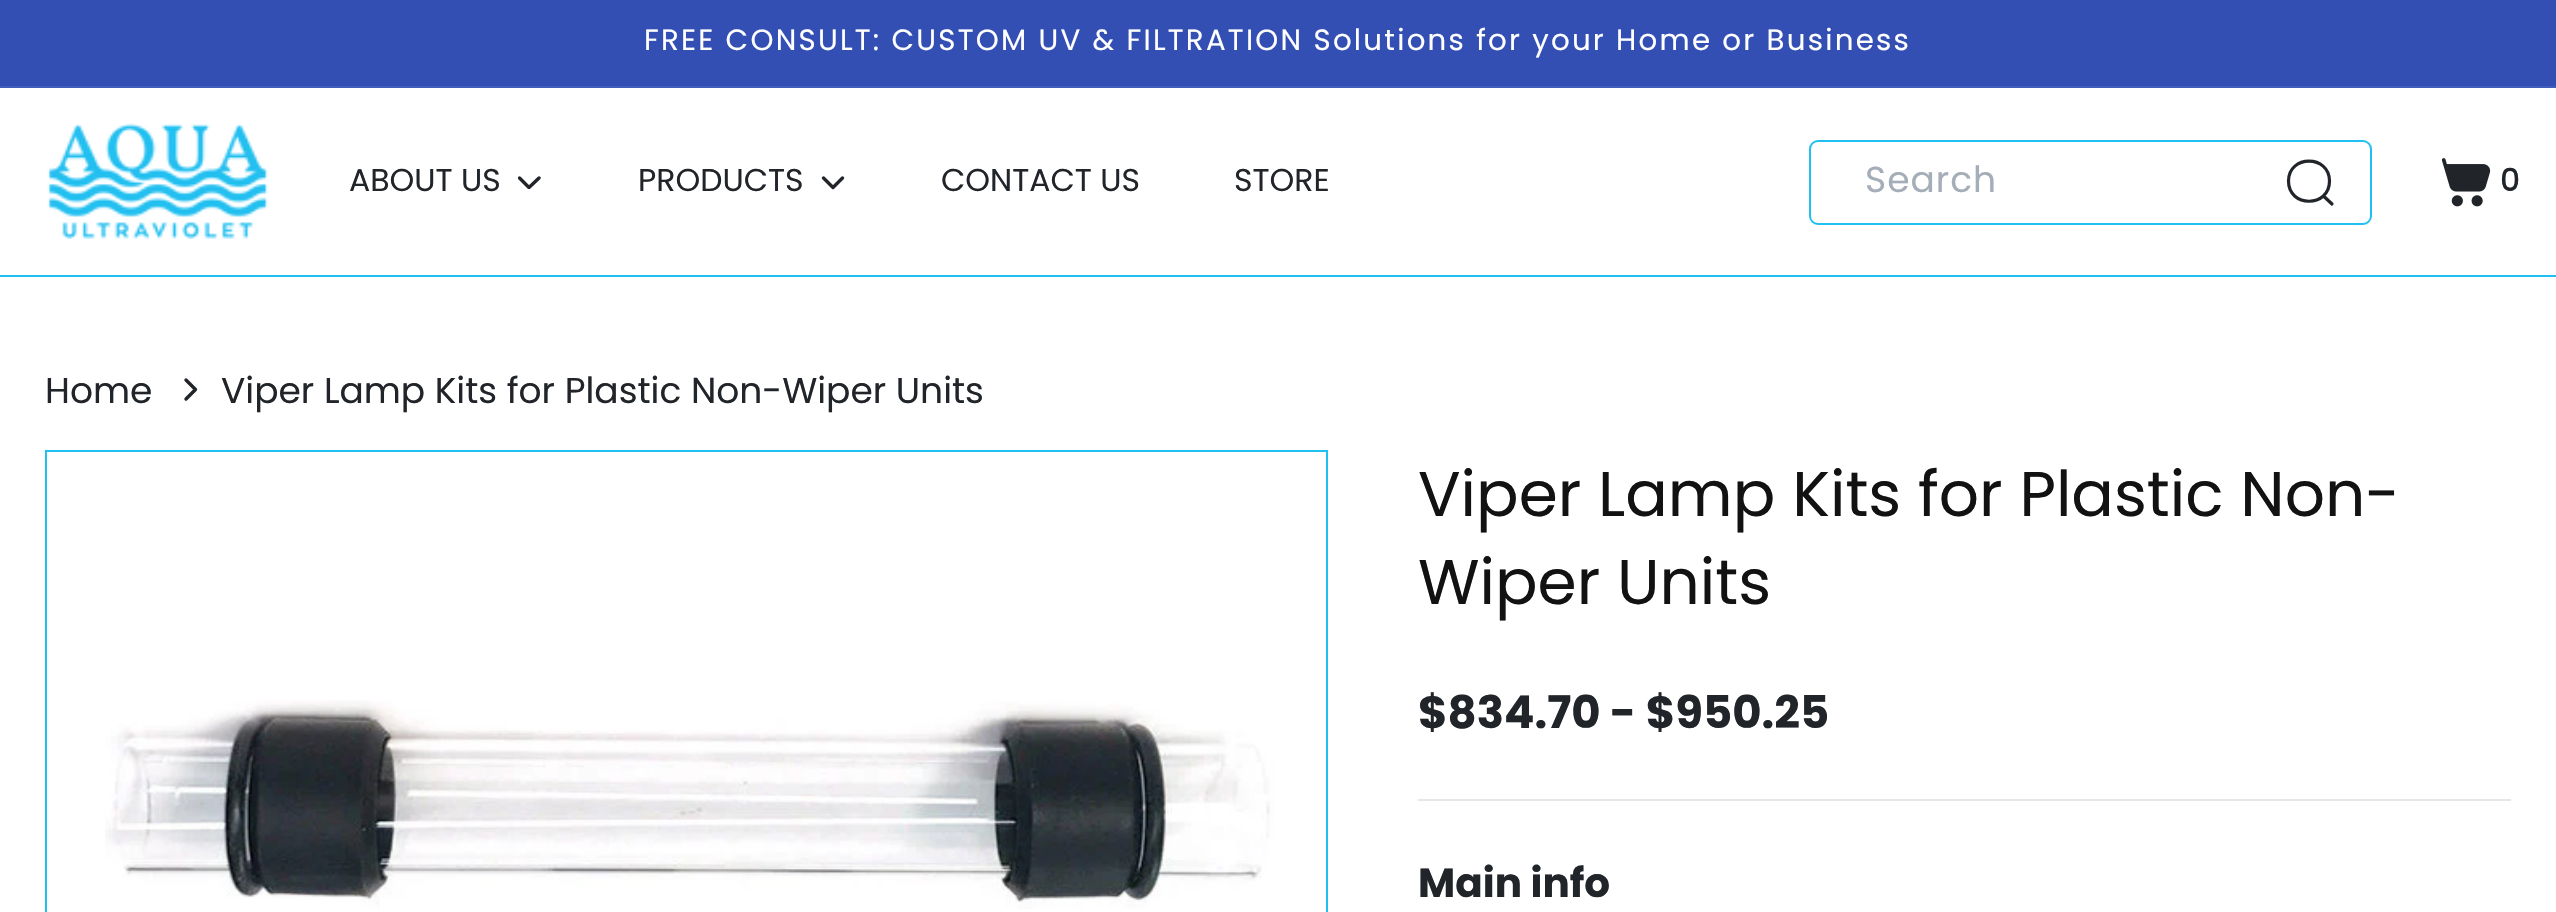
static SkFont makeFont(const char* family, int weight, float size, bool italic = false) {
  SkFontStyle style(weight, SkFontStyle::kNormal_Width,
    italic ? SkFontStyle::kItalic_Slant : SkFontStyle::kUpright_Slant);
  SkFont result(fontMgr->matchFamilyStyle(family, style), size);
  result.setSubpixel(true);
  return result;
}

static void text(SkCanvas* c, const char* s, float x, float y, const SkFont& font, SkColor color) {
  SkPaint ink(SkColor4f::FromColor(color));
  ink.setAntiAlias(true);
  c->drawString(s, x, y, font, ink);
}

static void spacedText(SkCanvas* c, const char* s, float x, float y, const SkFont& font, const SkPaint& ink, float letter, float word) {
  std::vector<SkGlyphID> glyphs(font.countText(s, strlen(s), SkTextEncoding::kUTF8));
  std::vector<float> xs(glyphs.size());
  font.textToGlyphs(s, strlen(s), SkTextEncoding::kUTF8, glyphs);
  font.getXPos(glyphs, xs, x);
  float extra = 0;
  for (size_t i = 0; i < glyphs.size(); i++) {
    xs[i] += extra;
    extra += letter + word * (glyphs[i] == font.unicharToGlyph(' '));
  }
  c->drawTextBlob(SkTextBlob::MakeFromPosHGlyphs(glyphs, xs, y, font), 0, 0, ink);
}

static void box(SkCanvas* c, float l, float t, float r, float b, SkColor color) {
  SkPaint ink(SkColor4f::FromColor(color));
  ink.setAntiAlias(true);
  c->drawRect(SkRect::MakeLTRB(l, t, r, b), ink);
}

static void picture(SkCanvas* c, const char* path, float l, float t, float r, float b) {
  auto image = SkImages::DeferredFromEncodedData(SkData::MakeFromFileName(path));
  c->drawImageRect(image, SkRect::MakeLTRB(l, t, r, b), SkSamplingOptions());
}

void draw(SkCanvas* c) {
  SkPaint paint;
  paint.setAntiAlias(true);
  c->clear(0xffffffff);
  box(c, 0, 0, 2556, 86, 0xff334fb4);
  box(c, 0, 86, 2556, 88, 0xff435dba);
  SkFont face1 = makeFont("Poppins", 400, 29.25f);
  paint.setColor(0xffffffff);
  spacedText(c, "FREE CONSULT: CUSTOM UV & FILTRATION Solutions for your Home or Business", 644, 50, face1, paint, 2.25f, 0);
  box(c, 0, 275, 2556, 277, 0xff22c0f1);
  picture(c, "img_01.png", 47, 123, 269, 239);
  SkFont face2 = makeFont("Poppins", 400, 31.5f);
  text(c, "ABOUT US", 349, 191, face2, 0xff212529);
  c->save();
  c->clipRect(SkRect::MakeLTRB(518, 176, 542, 189));
  paint.setStyle(SkPaint::kStroke_Style);
  paint.setStrokeWidth(3.4f);
  paint.setStrokeCap(SkPaint::kRound_Cap);
  paint.setStrokeJoin(SkPaint::kRound_Join);
  paint.setColor(0xff212529);
  c->drawPath(SkPathBuilder().moveTo(519.5f, 178).lineTo(529, 187.5f).lineTo(539, 178).detach(), paint);
  c->restore();
  text(c, "PRODUCTS", 638, 191, face2, 0xff212529);
  c->drawPath(SkPathBuilder().moveTo(823.5f, 178).lineTo(833, 187.5f).lineTo(842.5f, 178).detach(), paint);
  text(c, "CONTACT US", 941, 191, face2, 0xff212529);
  text(c, "STORE", 1234, 191, face2, 0xff212529);
  paint.setStrokeWidth(2);
  paint.setStrokeCap(SkPaint::kButt_Cap);
  paint.setStrokeJoin(SkPaint::kMiter_Join);
  paint.setColor(0xff22c0f1);
  c->drawRoundRect(SkRect::MakeLTRB(1810, 141, 2371, 224), 8, 8, paint);
  SkFont face3 = makeFont("Poppins", 400, 36);
  paint.setStyle(SkPaint::kFill_Style);
  paint.setColor(0xffa5adb8);
  spacedText(c, "Search", 1865, 192, face3, paint, 1, 0);
  paint.setStyle(SkPaint::kStroke_Style);
  paint.setStrokeWidth(3.2f);
  paint.setStrokeCap(SkPaint::kRound_Cap);
  paint.setStrokeJoin(SkPaint::kRound_Join);
  paint.setColor(0xff212529);
  c->drawPath(SkPathBuilder().moveTo(2324, 196.5f).lineTo(2332, 204).moveTo(2329.5f, 181).cubicTo(2329.5f, 154.5f, 2288.5f, 154.5f, 2288.5f, 181).cubicTo(2288.5f, 208, 2329.5f, 208, 2329.5f, 181).close().detach(), paint);
  picture(c, "img_02.png", 2441, 158, 2491, 207);
  SkFont face4 = makeFont("Poppins", 500, 31.5f);
  text(c, "0", 2500, 191, face4, 0xff212529);
  text(c, "Home", 45, 403, face3, 0xff212529);
  paint.setStrokeWidth(3.4f);
  c->drawPath(SkPathBuilder().moveTo(186, 380).lineTo(195.5f, 389.5f).lineTo(186, 399).detach(), paint);
  text(c, "Viper Lamp Kits for Plastic Non-Wiper Units", 221, 403, face3, 0xff212529);
  paint.setStrokeWidth(2);
  paint.setStrokeCap(SkPaint::kButt_Cap);
  paint.setStrokeJoin(SkPaint::kMiter_Join);
  paint.setColor(0xff22c0f1);
  c->drawRect(SkRect::MakeLTRB(46, 451, 1327, 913), paint);
  picture(c, "img_03.png", 105, 700, 1274, 909);
  SkFont face5 = makeFont("Poppins", 400, 63);
  text(c, "Viper Lamp Kits for Plastic Non-", 1418, 516, face5, 0xff121212);
  text(c, "Wiper Units", 1418, 604, face5, 0xff121212);
  SkFont face6 = makeFont("Poppins", 700, 45);
  text(c, "$834.70 - $950.25", 1418, 728, face6, 0xff212529);
  box(c, 1418, 799, 2511, 801, 0xffe7e7e7);
  SkFont face7 = makeFont("Poppins", 700, 40.5f);
  text(c, "Main info", 1418, 897, face7, 0xff212529);
}
